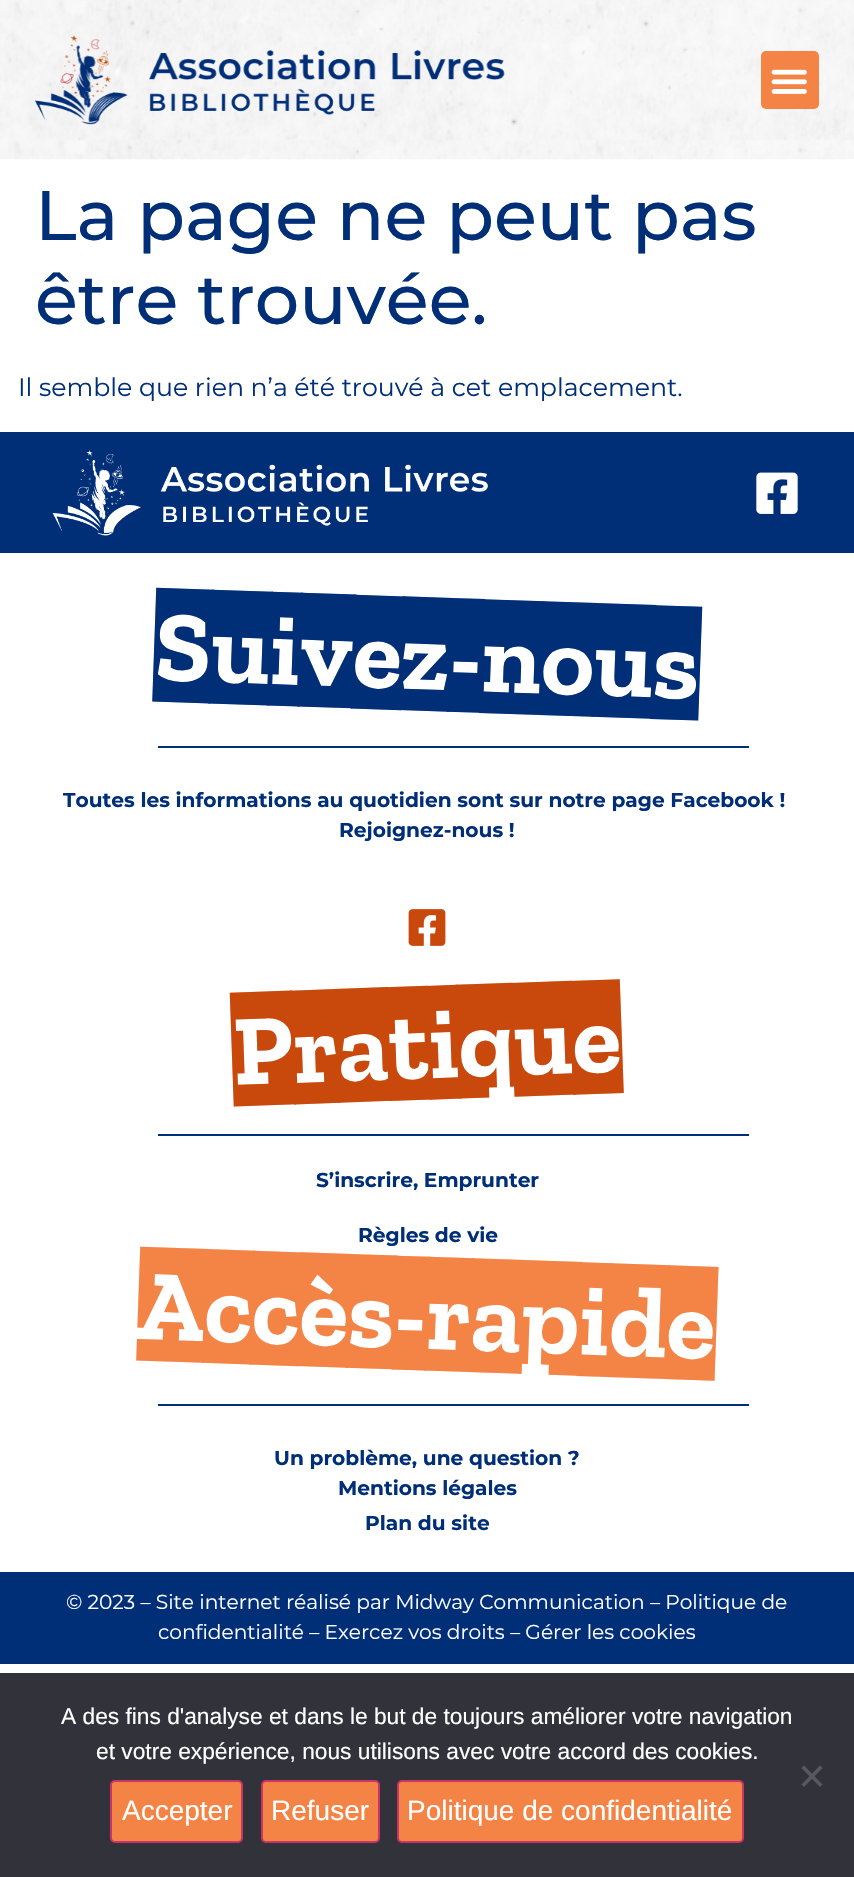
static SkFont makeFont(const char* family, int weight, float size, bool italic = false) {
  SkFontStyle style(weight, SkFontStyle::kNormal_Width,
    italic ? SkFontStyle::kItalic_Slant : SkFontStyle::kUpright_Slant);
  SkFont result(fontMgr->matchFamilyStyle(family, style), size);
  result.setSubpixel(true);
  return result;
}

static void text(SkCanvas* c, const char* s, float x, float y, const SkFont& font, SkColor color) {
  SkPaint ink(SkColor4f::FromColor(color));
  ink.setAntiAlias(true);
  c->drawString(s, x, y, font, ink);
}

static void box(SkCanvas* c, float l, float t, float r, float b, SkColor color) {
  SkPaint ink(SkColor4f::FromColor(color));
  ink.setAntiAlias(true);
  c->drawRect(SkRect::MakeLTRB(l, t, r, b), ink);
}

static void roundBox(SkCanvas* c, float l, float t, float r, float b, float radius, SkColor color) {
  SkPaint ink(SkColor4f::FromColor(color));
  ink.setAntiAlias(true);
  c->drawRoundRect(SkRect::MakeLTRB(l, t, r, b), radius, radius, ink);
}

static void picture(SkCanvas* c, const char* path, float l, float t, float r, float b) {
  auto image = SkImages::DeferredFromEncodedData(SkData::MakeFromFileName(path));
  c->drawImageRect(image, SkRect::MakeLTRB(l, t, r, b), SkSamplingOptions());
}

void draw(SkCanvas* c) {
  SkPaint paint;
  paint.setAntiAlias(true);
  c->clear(0xffffffff);
  picture(c, "img_01.png", 0, 0, 854, 160);
  picture(c, "img_02.png", 35, 35, 505, 125);
  roundBox(c, 761, 51, 819, 109, 5, 0xfff48346);
  picture(c, "img_03.png", 771, 69, 807, 94);
  SkFont face1 = makeFont("Montserrat", 500, 70);
  text(c, "La page ne peut pas", 35, 240, face1, 0xff002f78);
  text(c, "être trouvée.", 35, 324, face1, 0xff002f78);
  SkFont face2 = makeFont("Montserrat", 400, 25.2f);
  text(c, "Il semble que rien n’a été trouvé à cet emplacement.", 18, 396, face2, 0xff002f78);
  box(c, 0, 432, 854, 553, 0xff002f78);
  picture(c, "img_04.png", 52, 450, 488, 536);
  picture(c, "img_05.png", 756, 472, 798, 514);
  SkFont face3 = makeFont("Zilla Slab Highlight", 300, 100.75f);
  c->save();
  c->rotate(2, 154, 680);
  text(c, "Suivez-nous", 154, 680, face3, 0xff002f78);
  c->restore();
  box(c, 158, 746, 749, 748, 0xff002f78);
  SkFont face4 = makeFont("Montserrat", 700, 20.15f);
  text(c, "Toutes les informations au quotidien sont sur notre page Facebook !", 63, 807, face4, 0xff002f78);
  text(c, "Rejoignez-nous !", 339, 837, face4, 0xff002f78);
  picture(c, "img_06.png", 408, 909, 446, 946);
  c->save();
  c->rotate(-2, 234, 1085);
  text(c, "Pratique", 234, 1085, face3, 0xffc9490c);
  c->restore();
  box(c, 158, 1134, 749, 1136, 0xff002f78);
  text(c, "S’inscrire, Emprunter", 316, 1187, face4, 0xff002f78);
  text(c, "Règles de vie", 358, 1242, face4, 0xff002f78);
  c->save();
  c->rotate(2, 138, 1339);
  text(c, "Accès-rapide", 138, 1339, face3, 0xfff48346);
  c->restore();
  box(c, 158, 1404, 749, 1406, 0xff002f78);
  text(c, "Un problème, une question ?", 274, 1465, face4, 0xff002f78);
  text(c, "Mentions légales", 338, 1495, face4, 0xff002f78);
  text(c, "Plan du site", 365, 1530, face4, 0xff002f78);
  box(c, 0, 1572, 854, 1664, 0xff002f78);
  SkFont face5 = makeFont("Montserrat", 400, 20.15f);
  text(c, "© 2023 – Site internet réalisé par Midway Communication – Politique de", 66, 1609, face5, 0xffffffff);
  text(c, "confidentialité – Exercez vos droits – Gérer les cookies", 158, 1639, face5, 0xffffffff);
  box(c, 0, 1673, 854, 1877, 0xff32323a);
  SkFont face6 = makeFont("Liberation Sans", 400, 22.75f);
  text(c, "A des fins d'analyse et dans le but de toujours améliorer votre navigation", 61, 1724, face6, 0xffffffff);
  text(c, "et votre expérience, nous utilisons avec votre accord des cookies.", 96, 1759, face6, 0xffffffff);
  paint.setColor(0xff59595d);
  c->drawPath(SkPathBuilder().moveTo(820, 1765.5f).lineTo(822.5f, 1768).lineTo(804, 1787).lineTo(801.5f, 1784.5f).close().detach(), paint);
  c->drawPath(SkPathBuilder().moveTo(801.5f, 1768).lineTo(804, 1765.5f).lineTo(822.5f, 1784.5f).lineTo(820, 1787).close().detach(), paint);
  paint.setColor(0xfff48346);
  c->drawRoundRect(SkRect::MakeLTRB(111, 1781, 242, 1842), 4, 4, paint);
  paint.setStyle(SkPaint::kStroke_Style);
  paint.setStrokeWidth(2);
  paint.setColor(0xffcc3366);
  c->drawRoundRect(SkRect::MakeLTRB(111, 1781, 242, 1842), 4, 4, paint);
  SkFont face7 = makeFont("Liberation Sans", 400, 28);
  text(c, "Accepter", 122, 1820, face7, 0xffffffff);
  paint.setStyle(SkPaint::kFill_Style);
  paint.setColor(0xfff48346);
  c->drawRoundRect(SkRect::MakeLTRB(262, 1781, 379, 1842), 4, 4, paint);
  paint.setStyle(SkPaint::kStroke_Style);
  paint.setColor(0xffcc3366);
  c->drawRoundRect(SkRect::MakeLTRB(262, 1781, 379, 1842), 4, 4, paint);
  text(c, "Refuser", 271, 1820, face7, 0xffffffff);
  paint.setStyle(SkPaint::kFill_Style);
  paint.setColor(0xfff48346);
  c->drawRoundRect(SkRect::MakeLTRB(398, 1781, 743, 1842), 4, 4, paint);
  paint.setStyle(SkPaint::kStroke_Style);
  paint.setColor(0xffcc3366);
  c->drawRoundRect(SkRect::MakeLTRB(398, 1781, 743, 1842), 4, 4, paint);
  text(c, "Politique de confidentialité", 407, 1820, face7, 0xffffffff);
}
